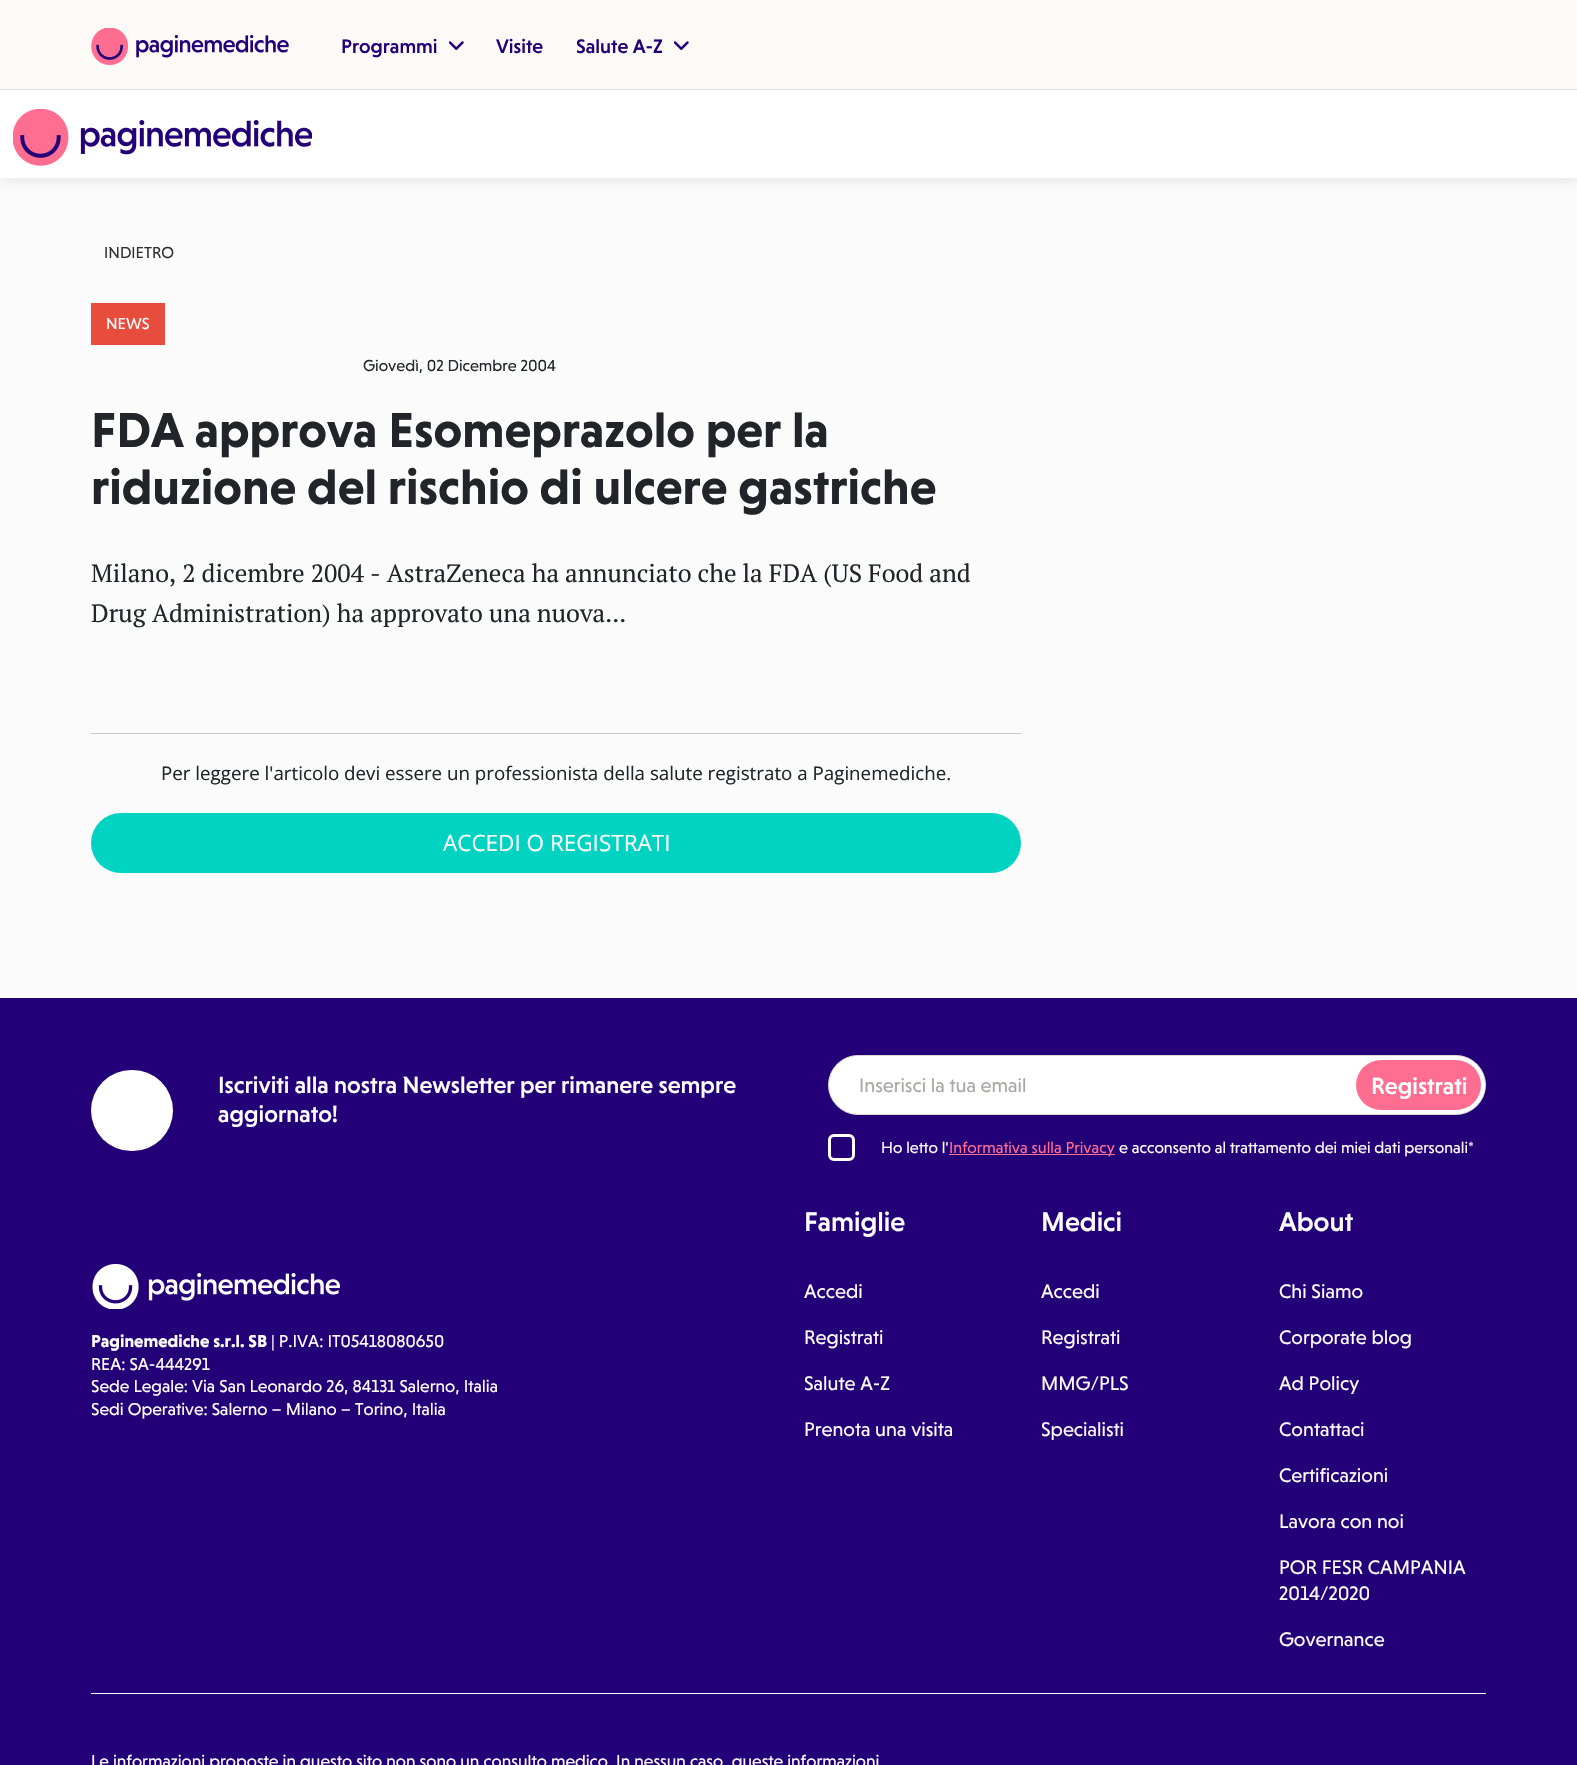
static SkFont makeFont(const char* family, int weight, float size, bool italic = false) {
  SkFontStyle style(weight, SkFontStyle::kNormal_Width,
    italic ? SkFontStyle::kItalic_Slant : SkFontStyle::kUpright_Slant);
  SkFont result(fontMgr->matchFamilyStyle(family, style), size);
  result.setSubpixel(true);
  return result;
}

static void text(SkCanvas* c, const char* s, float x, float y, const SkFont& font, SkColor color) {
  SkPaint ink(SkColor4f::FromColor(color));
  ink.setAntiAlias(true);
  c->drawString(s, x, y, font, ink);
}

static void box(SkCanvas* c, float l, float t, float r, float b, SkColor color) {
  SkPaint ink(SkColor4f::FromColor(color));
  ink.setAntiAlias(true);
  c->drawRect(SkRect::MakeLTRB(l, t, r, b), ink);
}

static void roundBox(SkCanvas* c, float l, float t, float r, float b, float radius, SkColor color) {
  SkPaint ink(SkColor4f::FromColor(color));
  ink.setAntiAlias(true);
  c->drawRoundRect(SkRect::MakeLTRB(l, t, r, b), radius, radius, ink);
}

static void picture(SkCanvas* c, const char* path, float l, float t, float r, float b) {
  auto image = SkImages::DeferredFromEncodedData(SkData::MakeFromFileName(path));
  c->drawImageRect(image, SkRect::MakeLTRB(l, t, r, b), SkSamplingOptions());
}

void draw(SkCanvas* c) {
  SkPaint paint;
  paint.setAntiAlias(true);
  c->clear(0xfffbfbfb);
  paint.setColor(0x1a323232);
  paint.setMaskFilter(SkMaskFilter::MakeBlur(kNormal_SkBlurStyle, 6));
  c->drawRect(SkRect::MakeLTRB(0, 94, 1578, 181), paint);
  paint.setMaskFilter(nullptr);
  box(c, 0, 0, 1577, 89, 0xfffcfaf7);
  box(c, 0, 89, 1577, 90, 0xffe5e2de);
  picture(c, "img_01.png", 91, 28, 289, 65);
  SkFont face1 = makeFont("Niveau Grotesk", 500, 20);
  text(c, "Programmi", 341, 53, face1, 0xff230078);
  picture(c, "img_02.png", 449, 41, 464, 50);
  text(c, "Visite", 496, 53, face1, 0xff230078);
  text(c, "Salute A-Z", 576, 53, face1, 0xff230078);
  picture(c, "img_02.png", 674, 41, 689, 50);
  box(c, 0, 90, 1577, 178, 0xffffffff);
  picture(c, "img_03.png", 13, 109, 312, 166);
  SkFont face2 = makeFont("Niveau Grotesk", 400, 16.25f);
  text(c, "INDIETRO", 104, 258, face2, 0xff303030);
  box(c, 91, 303, 165, 345, 0xffe74c3c);
  text(c, "NEWS", 106, 329, face2, 0xffffffff);
  text(c, "Giovedì, 02 Dicembre 2004", 363, 371, face2, 0xff212529);
  SkFont face3 = makeFont("Niveau Grotesk", 700, 50);
  text(c, "FDA approva Esomeprazolo per la", 91, 447, face3, 0xff212529);
  text(c, "riduzione del rischio di ulcere gastriche", 91, 504, face3, 0xff212529);
  SkFont face4 = makeFont("PT Serif", 400, 25);
  text(c, "Milano, 2 dicembre 2004 - AstraZeneca ha annunciato che la FDA (US Food and", 91, 582, face4, 0xff212529);
  text(c, "Drug Administration) ha approvato una nuova...", 91, 622, face4, 0xff212529);
  box(c, 91, 733, 1021, 734, 0xffcacaca);
  SkFont face5 = makeFont("Open Sans", 400, 18.75f);
  text(c, "Per leggere l'articolo devi essere un professionista della salute registrato a Paginemediche.", 161, 780, face5, 0xff212529);
  roundBox(c, 91, 813, 1021, 873, 30, 0xff00d3c2);
  SkFont face6 = makeFont("Open Sans", 400, 22.5f);
  text(c, "ACCEDI O REGISTRATI", 443, 851, face6, 0xffffffff);
  box(c, 0, 998, 1577, 1765, 0xff230078);
  roundBox(c, 91, 1070, 173, 1151, 40.5f, 0xffffffff);
  SkFont face7 = makeFont("Niveau Grotesk", 500, 23.75f);
  text(c, "Iscriviti alla nostra Newsletter per rimanere sempre", 218, 1093, face7, 0xffffffff);
  text(c, "aggiornato!", 218, 1122, face7, 0xffffffff);
  paint.setColor(0xffffffff);
  c->drawRoundRect(SkRect::MakeLTRB(828.5f, 1055.5f, 1485.5f, 1114.5f), 29.5f, 29.5f, paint);
  paint.setStyle(SkPaint::kStroke_Style);
  paint.setStrokeWidth(1);
  paint.setColor(0xffdcd9d4);
  c->drawRoundRect(SkRect::MakeLTRB(828.5f, 1055.5f, 1485.5f, 1114.5f), 29.5f, 29.5f, paint);
  SkFont face8 = makeFont("Niveau Grotesk", 400, 20);
  text(c, "Inserisci la tua email", 859, 1092, face8, 0xffaaa7a2);
  roundBox(c, 1356, 1060, 1481, 1110, 25, 0xffff6e91);
  text(c, "Registrati", 1371, 1094, face7, 0xffffffff);
  paint.setStrokeWidth(3);
  paint.setColor(0xffffffff);
  c->drawRoundRect(SkRect::MakeLTRB(829.5f, 1135.5f, 853.5f, 1159.5f), 4.5f, 4.5f, paint);
  text(c, "Ho letto l'", 881, 1153, face2, 0xffffffff);
  box(c, 949, 1154, 1115, 1155, 0xffff6e91);
  text(c, "Informativa sulla Privacy", 949, 1153, face2, 0xffff6e91);
  text(c, "e acconsento al trattamento dei miei dati personali*", 1119, 1153, face2, 0xffffffff);
  picture(c, "img_04.png", 92, 1264, 340, 1309);
  SkFont face9 = makeFont("Niveau Grotesk", 700, 17.5f);
  text(c, "Paginemediche s.r.l. SB", 91, 1347, face9, 0xffffffff);
  SkFont face10 = makeFont("Niveau Grotesk", 400, 17.5f);
  text(c, "| P.IVA: IT05418080650", 271, 1347, face10, 0xffffffff);
  text(c, "REA: SA-444291", 91, 1370, face10, 0xffffffff);
  text(c, "Sede Legale: Via San Leonardo 26, 84131 Salerno, Italia", 91, 1392, face10, 0xffffffff);
  text(c, "Sedi Operative: Salerno – Milano – Torino, Italia", 91, 1415, face10, 0xffffffff);
  SkFont face11 = makeFont("Niveau Grotesk", 500, 27.5f);
  text(c, "Famiglie", 804, 1231, face11, 0xffffffff);
  text(c, "Accedi", 804, 1298, face8, 0xffffffff);
  text(c, "Registrati", 804, 1344, face8, 0xffffffff);
  text(c, "Salute A-Z", 804, 1390, face8, 0xffffffff);
  text(c, "Prenota una visita", 804, 1436, face8, 0xffffffff);
  text(c, "Medici", 1041, 1231, face11, 0xffffffff);
  text(c, "Accedi", 1041, 1298, face8, 0xffffffff);
  text(c, "Registrati", 1041, 1344, face8, 0xffffffff);
  text(c, "MMG/PLS", 1041, 1390, face8, 0xffffffff);
  text(c, "Specialisti", 1041, 1436, face8, 0xffffffff);
  text(c, "About", 1279, 1231, face11, 0xffffffff);
  text(c, "Chi Siamo", 1279, 1298, face8, 0xffffffff);
  text(c, "Corporate blog", 1279, 1344, face8, 0xffffffff);
  text(c, "Ad Policy", 1279, 1390, face8, 0xffffffff);
  text(c, "Contattaci", 1279, 1436, face8, 0xffffffff);
  text(c, "Certificazioni", 1279, 1482, face8, 0xffffffff);
  text(c, "Lavora con noi", 1279, 1528, face8, 0xffffffff);
  text(c, "POR FESR CAMPANIA", 1279, 1574, face8, 0xffffffff);
  text(c, "2014/2020", 1279, 1600, face8, 0xffffffff);
  text(c, "Governance", 1279, 1646, face8, 0xffffffff);
  box(c, 91, 1693, 1486, 1694, 0xffffffff);
  text(c, "Le informazioni proposte in questo sito non sono un consulto medico. In nessun caso, queste informazioni", 91, 1767, face10, 0xffffffff);
}
